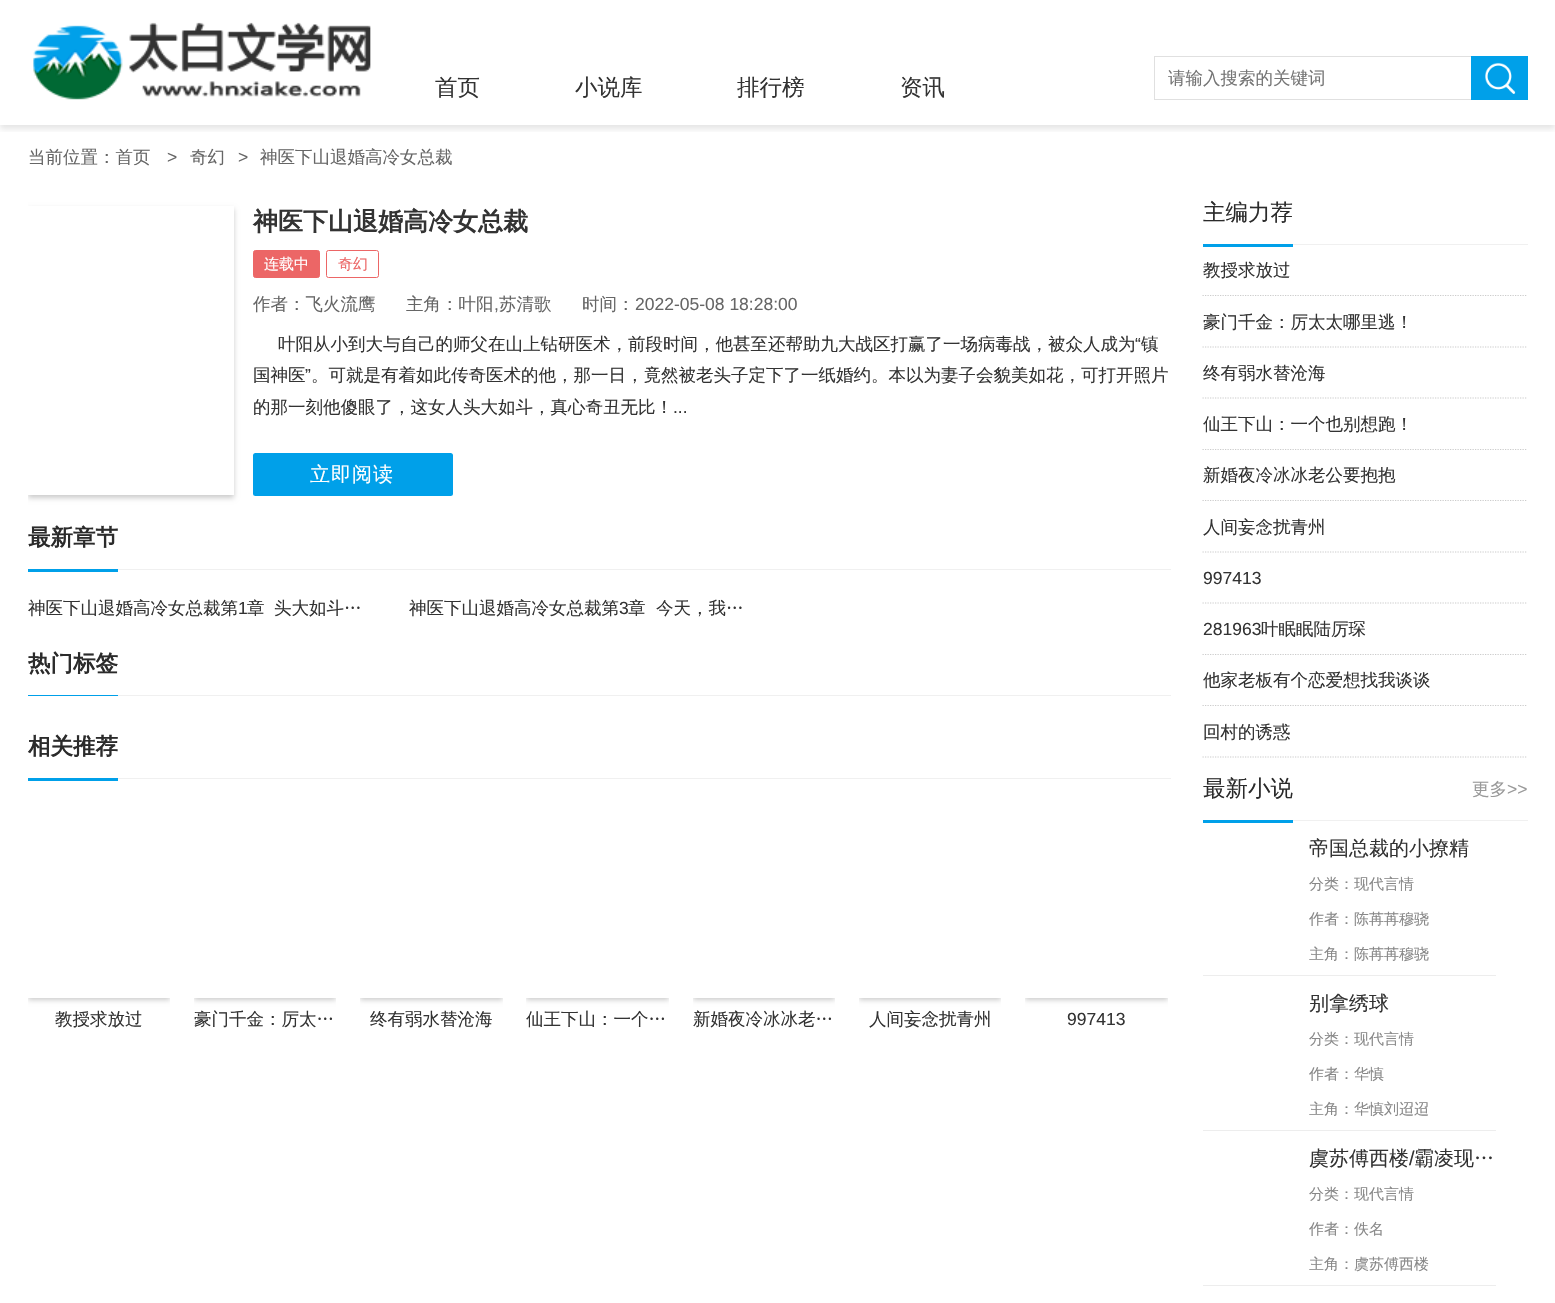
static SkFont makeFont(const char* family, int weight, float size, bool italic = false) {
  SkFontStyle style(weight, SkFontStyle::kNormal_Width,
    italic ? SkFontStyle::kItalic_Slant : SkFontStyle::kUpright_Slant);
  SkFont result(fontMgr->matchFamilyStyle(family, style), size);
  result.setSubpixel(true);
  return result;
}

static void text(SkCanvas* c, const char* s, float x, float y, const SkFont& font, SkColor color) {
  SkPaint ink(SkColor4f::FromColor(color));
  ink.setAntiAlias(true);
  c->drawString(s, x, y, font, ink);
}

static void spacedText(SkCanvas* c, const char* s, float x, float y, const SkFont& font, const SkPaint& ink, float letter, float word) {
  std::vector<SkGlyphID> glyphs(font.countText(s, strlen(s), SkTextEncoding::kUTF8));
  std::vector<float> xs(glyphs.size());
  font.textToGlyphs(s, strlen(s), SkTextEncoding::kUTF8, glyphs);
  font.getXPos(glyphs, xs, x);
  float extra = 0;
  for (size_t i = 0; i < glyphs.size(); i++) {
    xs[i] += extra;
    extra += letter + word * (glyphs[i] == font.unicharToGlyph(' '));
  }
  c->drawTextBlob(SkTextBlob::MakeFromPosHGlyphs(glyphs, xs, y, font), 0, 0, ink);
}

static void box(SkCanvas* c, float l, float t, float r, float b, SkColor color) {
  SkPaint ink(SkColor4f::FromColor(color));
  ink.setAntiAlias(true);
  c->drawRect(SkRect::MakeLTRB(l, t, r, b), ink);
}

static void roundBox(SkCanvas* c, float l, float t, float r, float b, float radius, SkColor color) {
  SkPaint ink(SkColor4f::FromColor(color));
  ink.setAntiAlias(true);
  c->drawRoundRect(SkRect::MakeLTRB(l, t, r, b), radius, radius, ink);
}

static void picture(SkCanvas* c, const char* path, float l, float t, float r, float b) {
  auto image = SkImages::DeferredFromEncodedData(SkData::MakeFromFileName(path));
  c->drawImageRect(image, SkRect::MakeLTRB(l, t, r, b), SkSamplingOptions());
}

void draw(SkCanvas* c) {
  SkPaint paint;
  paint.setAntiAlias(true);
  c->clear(0xffffffff);
  c->save();
  c->clipRect(SkRect::MakeLTRB(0, 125, 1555, 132));
  paint.setColor(0x1a000000);
  paint.setMaskFilter(SkMaskFilter::MakeBlur(kNormal_SkBlurStyle, 3));
  c->drawRect(SkRect::MakeLTRB(0, 4, 1555, 129), paint);
  paint.setMaskFilter(nullptr);
  c->restore();
  picture(c, "img_01.png", 33, 22, 371, 100);
  SkFont face1 = makeFont("WenQuanYi Zen Hei", 500, 22.5f);
  text(c, "首页", 435, 95, face1, 0xff333333);
  text(c, "小说库", 575, 95, face1, 0xff333333);
  text(c, "排行榜", 737, 95, face1, 0xff333333);
  text(c, "资讯", 900, 95, face1, 0xff333333);
  box(c, 1154, 56, 1471, 57, 0xffe0e0e0);
  box(c, 1154, 99, 1471, 100, 0xffe0e0e0);
  box(c, 1154, 56, 1155, 100, 0xffe0e0e0);
  SkFont face2 = makeFont("WenQuanYi Zen Hei", 500, 17.5f);
  text(c, "请输入搜索的关键词", 1168, 84, face2, 0xff757575);
  box(c, 1471, 56, 1528, 100, 0xff00a0e9);
  picture(c, "img_02.png", 1485, 62, 1516, 94);
  text(c, "当前位置：首页", 28, 163, face2, 0xff666666);
  SkFont face3 = makeFont("Liberation Sans", 400, 17.5f);
  text(c, ">", 167, 163, face3, 0xff666666);
  text(c, "奇幻", 190, 163, face2, 0xff666666);
  text(c, ">", 238, 163, face3, 0xff666666);
  text(c, "神医下山退婚高冷女总裁", 260, 163, face2, 0xff666666);
  SkFont face4 = makeFont("WenQuanYi Zen Hei", 700, 25);
  text(c, "神医下山退婚高冷女总裁", 253, 230, face4, 0xff333333);
  c->save();
  c->clipRect(SkRect::MakeLTRB(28, 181, 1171, 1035));
  c->clipPath(SkPathBuilder(SkPathFillType::kEvenOdd).moveTo(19, 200).lineTo(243, 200).lineTo(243, 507).lineTo(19, 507).close().moveTo(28, 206).lineTo(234, 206).lineTo(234, 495).lineTo(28, 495).close().detach(), true);
  paint.setColor(0x33000000);
  paint.setMaskFilter(SkMaskFilter::MakeBlur(kNormal_SkBlurStyle, 2.5f));
  c->drawRect(SkRect::MakeLTRB(28, 209, 234, 498), paint);
  paint.setMaskFilter(nullptr);
  c->restore();
  paint.setColor(0xffec6666);
  c->drawRoundRect(SkRect::MakeLTRB(253.5f, 250.5f, 319.5f, 277.5f), 2, 2, paint);
  paint.setStyle(SkPaint::kStroke_Style);
  paint.setStrokeWidth(1);
  c->drawRoundRect(SkRect::MakeLTRB(253.5f, 250.5f, 319.5f, 277.5f), 2, 2, paint);
  SkFont face5 = makeFont("WenQuanYi Zen Hei", 500, 15);
  text(c, "连载中", 264, 269, face5, 0xffffffff);
  c->drawRoundRect(SkRect::MakeLTRB(326.5f, 250.5f, 378.5f, 277.5f), 2, 2, paint);
  text(c, "奇幻", 338, 269, face5, 0xffec6666);
  text(c, "作者：飞火流鹰", 253, 310, face2, 0xff666666);
  text(c, "主角：叶阳", 406, 310, face2, 0xff666666);
  text(c, ",", 494, 310, face3, 0xff666666);
  text(c, "苏清歌", 499, 310, face2, 0xff666666);
  text(c, "时间：", 582, 310, face2, 0xff666666);
  text(c, "2022-05-08 18:28:00", 635, 310, face3, 0xff666666);
  text(c, "叶阳从小到大与自己的师父在山上钻研医术，前段时间，他甚至还帮助九大战区打赢了一场病毒战，被众人成为", 278, 350, face2, 0xff333333);
  text(c, "“", 1135, 350, face3, 0xff333333);
  text(c, "镇", 1141, 350, face2, 0xff333333);
  text(c, "国神医", 253, 381, face2, 0xff333333);
  text(c, "”", 305, 381, face3, 0xff333333);
  text(c, "。可就是有着如此传奇医术的他，那一日，竟然被老头子定下了一纸婚约。本以为妻子会貌美如花，可打开照片", 311, 381, face2, 0xff333333);
  text(c, "的那一刻他傻眼了，这女人头大如斗，真心奇丑无比！", 253, 413, face2, 0xff333333);
  text(c, "...", 673, 413, face3, 0xff333333);
  roundBox(c, 253, 453, 453, 496, 2.5f, 0xff00a0e9);
  SkFont face6 = makeFont("WenQuanYi Zen Hei", 500, 20);
  paint.setStyle(SkPaint::kFill_Style);
  paint.setColor(0xffffffff);
  spacedText(c, "立即阅读", 310, 481, face6, paint, 1, 0);
  box(c, 118, 569, 1171, 570, 0xfff0f0f0);
  box(c, 28, 569, 118, 572, 0xff00a0e9);
  SkFont face7 = makeFont("WenQuanYi Zen Hei", 700, 22.5f);
  text(c, "最新章节", 28, 545, face7, 0xff2b2b2b);
  text(c, "神医下山退婚高冷女总裁第", 28, 614, face2, 0xff333333);
  text(c, "1", 238, 614, face3, 0xff333333);
  text(c, "章", 247, 614, face2, 0xff333333);
  text(c, "头大如斗…", 274, 614, face2, 0xff333333);
  text(c, "神医下山退婚高冷女总裁第", 409, 614, face2, 0xff333333);
  text(c, "3", 619, 614, face3, 0xff333333);
  text(c, "章", 628, 614, face2, 0xff333333);
  text(c, "今天，我…", 656, 614, face2, 0xff333333);
  box(c, 118, 695, 1171, 696, 0xfff0f0f0);
  box(c, 28, 695, 118, 696, 0xff00a0e9);
  text(c, "热门标签", 28, 671, face7, 0xff2b2b2b);
  box(c, 118, 778, 1171, 779, 0xfff0f0f0);
  box(c, 28, 778, 118, 781, 0xff00a0e9);
  text(c, "相关推荐", 28, 754, face7, 0xff2b2b2b);
  c->save();
  c->clipRect(SkRect::MakeLTRB(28, 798, 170, 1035));
  c->clipPath(SkPathBuilder(SkPathFillType::kEvenOdd).moveTo(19, 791).lineTo(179, 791).lineTo(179, 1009).lineTo(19, 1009).close().moveTo(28, 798).lineTo(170, 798).lineTo(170, 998).lineTo(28, 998).close().detach(), true);
  paint.setColor(0x33000000);
  paint.setMaskFilter(SkMaskFilter::MakeBlur(kNormal_SkBlurStyle, 2.5f));
  c->drawRect(SkRect::MakeLTRB(28, 800, 170, 1000), paint);
  paint.setMaskFilter(nullptr);
  c->restore();
  text(c, "教授求放过", 55, 1025, face2, 0xff333333);
  c->save();
  c->clipRect(SkRect::MakeLTRB(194, 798, 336, 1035));
  c->clipPath(SkPathBuilder(SkPathFillType::kEvenOdd).moveTo(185, 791).lineTo(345, 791).lineTo(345, 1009).lineTo(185, 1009).close().moveTo(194, 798).lineTo(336, 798).lineTo(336, 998).lineTo(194, 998).close().detach(), true);
  paint.setMaskFilter(SkMaskFilter::MakeBlur(kNormal_SkBlurStyle, 2.5f));
  c->drawRect(SkRect::MakeLTRB(194, 800, 336, 1000), paint);
  paint.setMaskFilter(nullptr);
  c->restore();
  text(c, "豪门千金：厉太…", 194, 1025, face2, 0xff333333);
  c->save();
  c->clipRect(SkRect::MakeLTRB(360, 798, 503, 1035));
  c->clipPath(SkPathBuilder(SkPathFillType::kEvenOdd).moveTo(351, 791).lineTo(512, 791).lineTo(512, 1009).lineTo(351, 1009).close().moveTo(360, 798).lineTo(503, 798).lineTo(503, 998).lineTo(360, 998).close().detach(), true);
  paint.setMaskFilter(SkMaskFilter::MakeBlur(kNormal_SkBlurStyle, 2.5f));
  c->drawRect(SkRect::MakeLTRB(360, 800, 503, 1000), paint);
  paint.setMaskFilter(nullptr);
  c->restore();
  text(c, "终有弱水替沧海", 370, 1025, face2, 0xff333333);
  c->save();
  c->clipRect(SkRect::MakeLTRB(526, 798, 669, 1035));
  c->clipPath(SkPathBuilder(SkPathFillType::kEvenOdd).moveTo(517, 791).lineTo(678, 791).lineTo(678, 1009).lineTo(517, 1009).close().moveTo(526, 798).lineTo(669, 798).lineTo(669, 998).lineTo(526, 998).close().detach(), true);
  paint.setMaskFilter(SkMaskFilter::MakeBlur(kNormal_SkBlurStyle, 2.5f));
  c->drawRect(SkRect::MakeLTRB(526, 800, 669, 1000), paint);
  paint.setMaskFilter(nullptr);
  c->restore();
  text(c, "仙王下山：一个…", 526, 1025, face2, 0xff333333);
  c->save();
  c->clipRect(SkRect::MakeLTRB(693, 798, 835, 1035));
  c->clipPath(SkPathBuilder(SkPathFillType::kEvenOdd).moveTo(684, 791).lineTo(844, 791).lineTo(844, 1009).lineTo(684, 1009).close().moveTo(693, 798).lineTo(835, 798).lineTo(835, 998).lineTo(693, 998).close().detach(), true);
  paint.setMaskFilter(SkMaskFilter::MakeBlur(kNormal_SkBlurStyle, 2.5f));
  c->drawRect(SkRect::MakeLTRB(693, 800, 835, 1000), paint);
  paint.setMaskFilter(nullptr);
  c->restore();
  text(c, "新婚夜冷冰冰老…", 693, 1025, face2, 0xff333333);
  c->save();
  c->clipRect(SkRect::MakeLTRB(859, 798, 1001, 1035));
  c->clipPath(SkPathBuilder(SkPathFillType::kEvenOdd).moveTo(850, 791).lineTo(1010, 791).lineTo(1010, 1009).lineTo(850, 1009).close().moveTo(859, 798).lineTo(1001, 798).lineTo(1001, 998).lineTo(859, 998).close().detach(), true);
  paint.setMaskFilter(SkMaskFilter::MakeBlur(kNormal_SkBlurStyle, 2.5f));
  c->drawRect(SkRect::MakeLTRB(859, 800, 1001, 1000), paint);
  paint.setMaskFilter(nullptr);
  c->restore();
  text(c, "人间妄念扰青州", 869, 1025, face2, 0xff333333);
  c->save();
  c->clipRect(SkRect::MakeLTRB(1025, 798, 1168, 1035));
  c->clipPath(SkPathBuilder(SkPathFillType::kEvenOdd).moveTo(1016, 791).lineTo(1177, 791).lineTo(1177, 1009).lineTo(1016, 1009).close().moveTo(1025, 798).lineTo(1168, 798).lineTo(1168, 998).lineTo(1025, 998).close().detach(), true);
  paint.setMaskFilter(SkMaskFilter::MakeBlur(kNormal_SkBlurStyle, 2.5f));
  c->drawRect(SkRect::MakeLTRB(1025, 800, 1168, 1000), paint);
  paint.setMaskFilter(nullptr);
  c->restore();
  text(c, "997413", 1067, 1025, face3, 0xff333333);
  box(c, 1293, 244, 1528, 245, 0xfff0f0f0);
  box(c, 1203, 244, 1293, 247, 0xff00a0e9);
  text(c, "主编力荐", 1203, 220, face1, 0xff2b2b2b);
  paint.setStyle(SkPaint::kStroke_Style);
  paint.setStrokeWidth(1.2f);
  paint.setColor(0xffcccccc);
  paint.setPathEffect(SkDashPathEffect::Make({{1.25f, 1.25f}}, 0));
  c->drawPath(SkPathBuilder().moveTo(1202.5f, 295.5f).lineTo(1527.5f, 295.5f).detach(), paint);
  paint.setPathEffect(nullptr);
  text(c, "教授求放过", 1203, 276, face2, 0xff333333);
  paint.setPathEffect(SkDashPathEffect::Make({{1.25f, 1.25f}}, 0));
  c->drawPath(SkPathBuilder().moveTo(1202.5f, 347).lineTo(1527.5f, 347).detach(), paint);
  paint.setPathEffect(nullptr);
  text(c, "豪门千金：厉太太哪里逃！", 1203, 328, face2, 0xff333333);
  paint.setPathEffect(SkDashPathEffect::Make({{1.25f, 1.25f}}, 0));
  c->drawPath(SkPathBuilder().moveTo(1202.5f, 398).lineTo(1527.5f, 398).detach(), paint);
  paint.setPathEffect(nullptr);
  text(c, "终有弱水替沧海", 1203, 379, face2, 0xff333333);
  paint.setPathEffect(SkDashPathEffect::Make({{1.25f, 1.25f}}, 0));
  c->drawPath(SkPathBuilder().moveTo(1202.5f, 449.5f).lineTo(1527.5f, 449.5f).detach(), paint);
  paint.setPathEffect(nullptr);
  text(c, "仙王下山：一个也别想跑！", 1203, 430, face2, 0xff333333);
  paint.setPathEffect(SkDashPathEffect::Make({{1.25f, 1.25f}}, 0));
  c->drawPath(SkPathBuilder().moveTo(1202.5f, 500.5f).lineTo(1527.5f, 500.5f).detach(), paint);
  paint.setPathEffect(nullptr);
  text(c, "新婚夜冷冰冰老公要抱抱", 1203, 481, face2, 0xff333333);
  paint.setPathEffect(SkDashPathEffect::Make({{1.25f, 1.25f}}, 0));
  c->drawPath(SkPathBuilder().moveTo(1202.5f, 552).lineTo(1527.5f, 552).detach(), paint);
  paint.setPathEffect(nullptr);
  text(c, "人间妄念扰青州", 1203, 533, face2, 0xff333333);
  paint.setPathEffect(SkDashPathEffect::Make({{1.25f, 1.25f}}, 0));
  c->drawPath(SkPathBuilder().moveTo(1202.5f, 603).lineTo(1527.5f, 603).detach(), paint);
  paint.setPathEffect(nullptr);
  text(c, "997413", 1203, 584, face3, 0xff333333);
  paint.setPathEffect(SkDashPathEffect::Make({{1.25f, 1.25f}}, 0));
  c->drawPath(SkPathBuilder().moveTo(1202.5f, 654.5f).lineTo(1527.5f, 654.5f).detach(), paint);
  paint.setPathEffect(nullptr);
  text(c, "281963", 1203, 635, face3, 0xff333333);
  text(c, "叶眠眠陆厉琛", 1261, 635, face2, 0xff333333);
  paint.setPathEffect(SkDashPathEffect::Make({{1.25f, 1.25f}}, 0));
  c->drawPath(SkPathBuilder().moveTo(1202.5f, 705.5f).lineTo(1527.5f, 705.5f).detach(), paint);
  paint.setPathEffect(nullptr);
  text(c, "他家老板有个恋爱想找我谈谈", 1203, 686, face2, 0xff333333);
  paint.setPathEffect(SkDashPathEffect::Make({{1.25f, 1.25f}}, 0));
  c->drawPath(SkPathBuilder().moveTo(1202.5f, 757).lineTo(1527.5f, 757).detach(), paint);
  paint.setPathEffect(nullptr);
  text(c, "回村的诱惑", 1203, 738, face2, 0xff333333);
  box(c, 1293, 820, 1528, 821, 0xfff0f0f0);
  box(c, 1203, 820, 1293, 823, 0xff00a0e9);
  text(c, "最新小说", 1203, 796, face1, 0xff2b2b2b);
  text(c, "更多", 1472, 795, face2, 0xff999999);
  text(c, ">>", 1507, 795, face3, 0xff999999);
  box(c, 1203, 975, 1496, 976, 0xffededed);
  text(c, "帝国总裁的小撩精", 1309, 855, face6, 0xff333333);
  text(c, "分类：现代言情", 1309, 889, face5, 0xff888888);
  text(c, "作者：陈苒苒穆骁", 1309, 924, face5, 0xff888888);
  text(c, "主角：陈苒苒穆骁", 1309, 959, face5, 0xff888888);
  box(c, 1203, 1130, 1496, 1131, 0xffededed);
  text(c, "别拿绣球", 1309, 1010, face6, 0xff333333);
  text(c, "分类：现代言情", 1309, 1044, face5, 0xff888888);
  text(c, "作者：华慎", 1309, 1079, face5, 0xff888888);
  text(c, "主角：华慎刘迢迢", 1309, 1114, face5, 0xff888888);
  box(c, 1203, 1285, 1496, 1286, 0xffededed);
  text(c, "虞苏傅西楼", 1309, 1165, face6, 0xff333333);
  SkFont face8 = makeFont("Liberation Sans", 400, 20);
  text(c, "/", 1409, 1165, face8, 0xff333333);
  text(c, "霸凌现…", 1414, 1165, face6, 0xff333333);
  text(c, "分类：现代言情", 1309, 1199, face5, 0xff888888);
  text(c, "作者：佚名", 1309, 1234, face5, 0xff888888);
  text(c, "主角：虞苏傅西楼", 1309, 1269, face5, 0xff888888);
}
